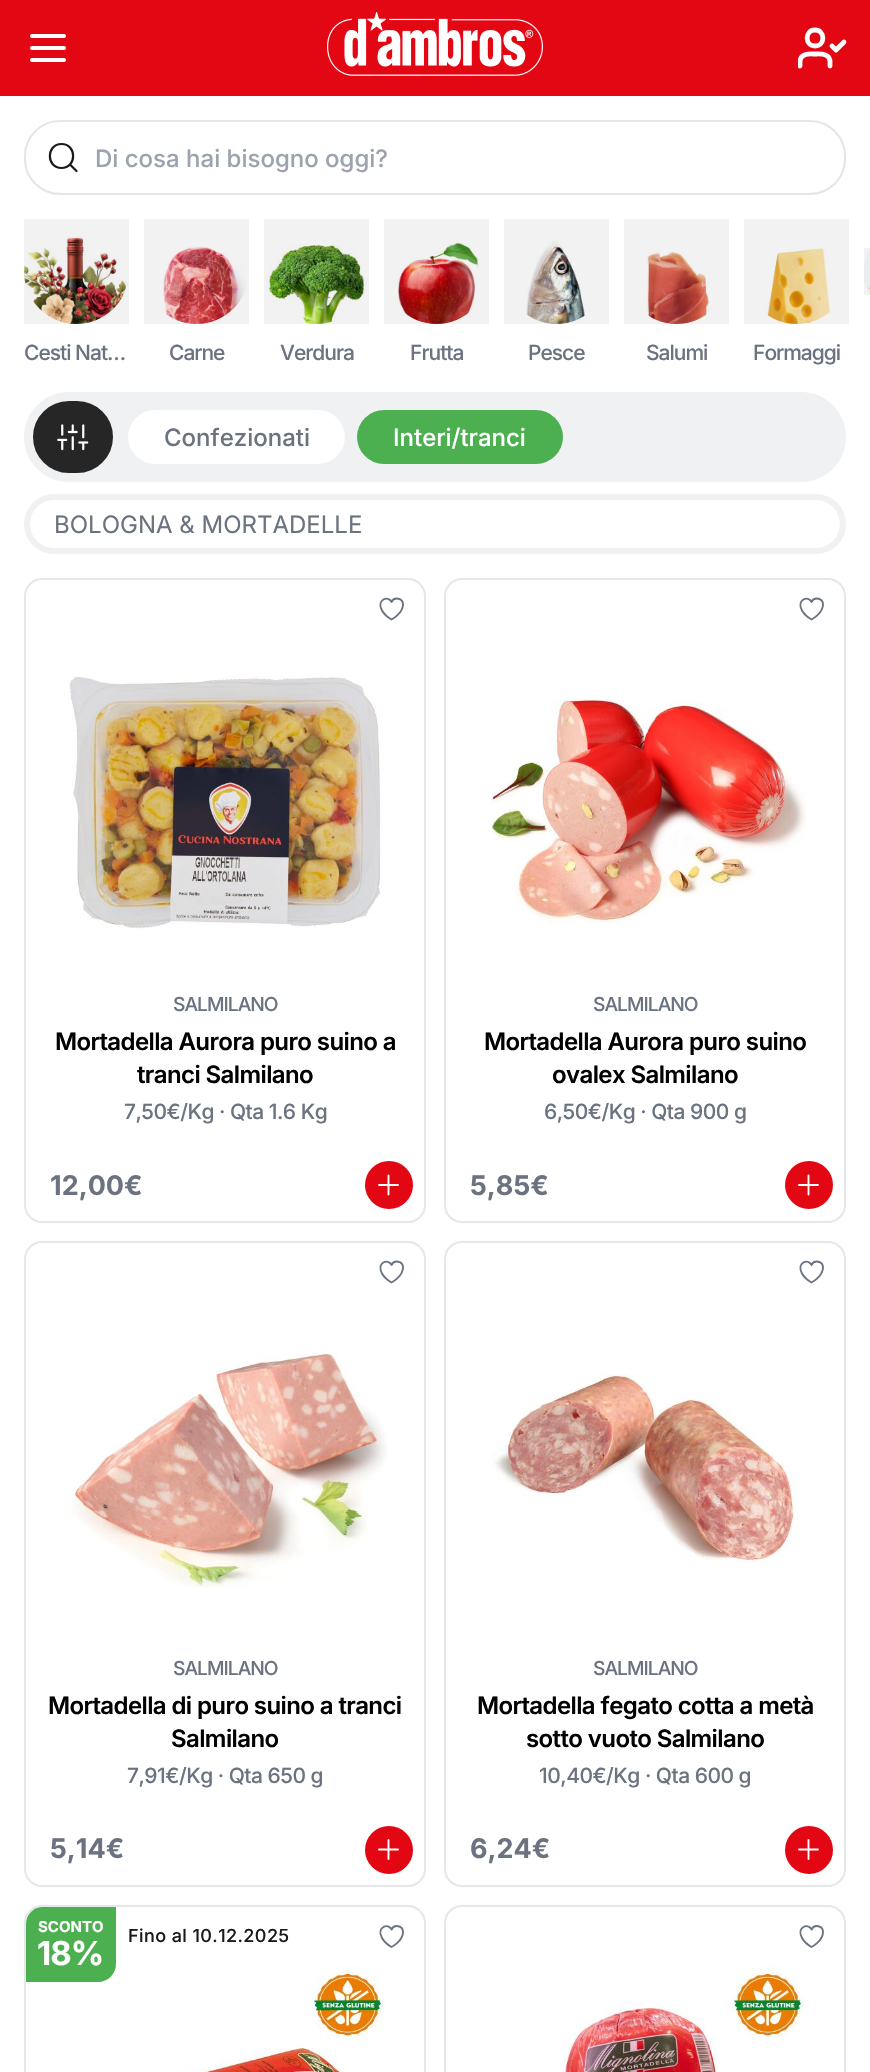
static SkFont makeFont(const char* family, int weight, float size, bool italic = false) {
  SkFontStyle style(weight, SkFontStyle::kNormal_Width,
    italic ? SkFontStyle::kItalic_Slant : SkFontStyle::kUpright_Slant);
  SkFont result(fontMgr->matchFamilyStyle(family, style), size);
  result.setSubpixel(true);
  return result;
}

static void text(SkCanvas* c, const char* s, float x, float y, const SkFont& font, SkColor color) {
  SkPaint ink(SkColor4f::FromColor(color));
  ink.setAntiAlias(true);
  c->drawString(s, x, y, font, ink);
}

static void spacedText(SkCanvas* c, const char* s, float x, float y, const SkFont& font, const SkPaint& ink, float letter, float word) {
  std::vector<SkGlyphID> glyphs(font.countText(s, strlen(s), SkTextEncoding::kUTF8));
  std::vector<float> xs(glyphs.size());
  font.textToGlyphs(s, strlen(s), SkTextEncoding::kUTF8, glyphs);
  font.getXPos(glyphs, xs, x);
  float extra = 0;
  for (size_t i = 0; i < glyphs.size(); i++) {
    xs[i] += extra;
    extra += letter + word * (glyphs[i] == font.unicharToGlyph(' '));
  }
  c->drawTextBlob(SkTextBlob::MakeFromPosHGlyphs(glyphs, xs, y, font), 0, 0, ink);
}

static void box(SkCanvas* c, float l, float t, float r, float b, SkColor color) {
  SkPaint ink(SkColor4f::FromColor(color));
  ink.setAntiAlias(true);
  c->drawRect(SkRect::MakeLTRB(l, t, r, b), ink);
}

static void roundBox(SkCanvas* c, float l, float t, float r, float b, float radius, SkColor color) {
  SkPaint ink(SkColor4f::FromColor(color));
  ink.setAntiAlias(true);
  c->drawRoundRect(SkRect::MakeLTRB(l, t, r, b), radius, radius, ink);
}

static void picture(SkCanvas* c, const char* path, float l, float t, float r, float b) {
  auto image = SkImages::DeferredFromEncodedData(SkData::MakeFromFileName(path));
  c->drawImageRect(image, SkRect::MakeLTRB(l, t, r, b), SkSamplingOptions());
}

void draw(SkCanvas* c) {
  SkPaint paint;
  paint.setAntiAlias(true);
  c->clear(0xffffffff);
  box(c, 0, 0, 870, 96, 0xffe30613);
  paint.setStyle(SkPaint::kStroke_Style);
  paint.setStrokeWidth(4);
  paint.setStrokeCap(SkPaint::kRound_Cap);
  paint.setStrokeJoin(SkPaint::kRound_Join);
  paint.setColor(0xffffffff);
  c->drawPath(SkPathBuilder().moveTo(32, 36).lineTo(64, 36).moveTo(32, 48).lineTo(64, 48).moveTo(32, 60).lineTo(64, 60).detach(), paint);
  picture(c, "img_01.png", 327, 12, 543, 76);
  c->save();
  c->clipRect(SkRect::MakeLTRB(798, 24, 846, 72));
  paint.setStrokeWidth(4.8f);
  c->drawPath(SkPathBuilder().moveTo(830, 66).lineTo(830, 60.5f).cubicTo(828.5f, 53, 821, 54, 815, 54).cubicTo(809, 54, 801.5f, 53, 800, 60.5f).lineTo(800, 66).detach(), paint);
  c->restore();
  c->drawPath(SkPathBuilder().moveTo(815, 46).cubicTo(825.5f, 46, 825.5f, 30, 815, 30).cubicTo(804.5f, 30, 804.5f, 46, 815, 46).close().moveTo(832, 46).lineTo(836, 50).lineTo(844, 42).detach(), paint);
  paint.setStrokeWidth(2);
  paint.setStrokeCap(SkPaint::kButt_Cap);
  paint.setStrokeJoin(SkPaint::kMiter_Join);
  paint.setColor(0xffe5e5e5);
  c->drawRoundRect(SkRect::MakeLTRB(25, 121, 845, 194), 35, 35, paint);
  paint.setStrokeWidth(2.2f);
  paint.setStrokeCap(SkPaint::kRound_Cap);
  paint.setStrokeJoin(SkPaint::kRound_Join);
  paint.setColor(0xff1a1a1a);
  c->drawPath(SkPathBuilder().moveTo(61.5f, 168).cubicTo(77, 168, 77, 144, 61.5f, 144).cubicTo(46, 144, 46, 168, 61.5f, 168).close().moveTo(76.5f, 171).lineTo(70, 164.5f).detach(), paint);
  SkFont face1 = makeFont("Inter", 500, 24);
  text(c, "Di cosa hai bisogno oggi?", 95, 167, face1, 0xff9ca3af);
  picture(c, "img_02.png", 864, 248, 870, 295);
  box(c, 864, 248, 870, 295, 0x0d000000);
  picture(c, "img_03.png", 24, 236, 128, 324);
  box(c, 24, 219, 129, 324, 0x0d000000);
  SkFont face2 = makeFont("Inter", 500, 21);
  paint.setStyle(SkPaint::kFill_Style);
  paint.setColor(0xff6b7280);
  spacedText(c, "Cesti Nat…", 24, 360, face2, paint, -1, 0);
  picture(c, "img_04.png", 163, 246, 246, 324);
  box(c, 144, 219, 249, 324, 0x0d000000);
  spacedText(c, "Carne", 169, 360, face2, paint, -1, 0);
  picture(c, "img_05.png", 264, 245, 368, 324);
  box(c, 264, 219, 369, 324, 0x0d000000);
  spacedText(c, "Verdura", 280, 360, face2, paint, -1, 0);
  picture(c, "img_06.png", 397, 242, 479, 324);
  box(c, 384, 219, 489, 324, 0x0d000000);
  spacedText(c, "Frutta", 410, 360, face2, paint, -1, 0);
  picture(c, "img_07.png", 526, 240, 585, 324);
  box(c, 504, 219, 609, 324, 0x0d000000);
  spacedText(c, "Pesce", 528, 360, face2, paint, -1, 0);
  picture(c, "img_08.png", 647, 252, 709, 324);
  box(c, 624, 219, 729, 324, 0x0d000000);
  spacedText(c, "Salumi", 646, 360, face2, paint, -1, 0);
  picture(c, "img_09.png", 767, 248, 831, 324);
  box(c, 744, 219, 849, 324, 0x0d000000);
  spacedText(c, "Formaggi", 753, 360, face2, paint, -1, 0);
  box(c, 77, 392, 122, 482, 0xffeff1f3);
  paint.setColor(0xff262626);
  c->drawRoundRect(SkRect::MakeLTRB(28.5f, 396.5f, 117.5f, 477.5f), 40.5f, 40.5f, paint);
  paint.setStyle(SkPaint::kStroke_Style);
  paint.setStrokeWidth(9);
  paint.setStrokeCap(SkPaint::kButt_Cap);
  paint.setStrokeJoin(SkPaint::kMiter_Join);
  paint.setColor(0xffeff1f3);
  c->drawRoundRect(SkRect::MakeLTRB(28.5f, 396.5f, 117.5f, 477.5f), 40.5f, 40.5f, paint);
  picture(c, "img_10.png", 57, 424, 89, 451);
  paint.setStyle(SkPaint::kFill_Style);
  c->drawPath(SkPathBuilder().moveTo(122, 392).lineTo(801, 392).cubicTo(826, 392, 846, 412, 846, 437).cubicTo(846, 462, 826, 482, 801, 482).lineTo(122, 482).close().detach(), paint);
  roundBox(c, 128, 410, 345, 464, 27, 0xffffffff);
  text(c, "Confezionati", 164, 446, face1, 0xff6b7280);
  roundBox(c, 357, 410, 563, 464, 27, 0xff4caf50);
  text(c, "Interi/tranci", 393, 446, face1, 0xffffffff);
  roundBox(c, 24, 494, 846, 554, 30, 0xffeff1f3);
  roundBox(c, 30, 500, 840, 548, 24, 0xffffffff);
  SkFont face3 = makeFont("Inter", 400, 24);
  text(c, "BOLOGNA & MORTADELLE", 54, 533, face3, 0xff6b7280);
  paint.setStyle(SkPaint::kStroke_Style);
  paint.setStrokeWidth(2);
  paint.setColor(0xffe5e7eb);
  c->drawRoundRect(SkRect::MakeLTRB(25, 579, 425, 1222), 17, 17, paint);
  paint.setStrokeWidth(1.9f);
  paint.setStrokeCap(SkPaint::kRound_Cap);
  paint.setStrokeJoin(SkPaint::kRound_Join);
  paint.setColor(0xff6b7280);
  c->drawPath(SkPathBuilder().moveTo(403, 604.5f).cubicTo(403, 598, 394, 596.5f, 391.5f, 602).cubicTo(388.5f, 595, 376, 599.5f, 382, 610.5f).cubicTo(384, 614, 388, 617.5f, 391.5f, 619.5f).cubicTo(391.5f, 619.5f, 403, 613.5f, 403, 604.5f).close().detach(), paint);
  picture(c, "img_11.png", 68, 676, 383, 929);
  SkFont face4 = makeFont("Inter", 500, 19.25f);
  paint.setStyle(SkPaint::kFill_Style);
  spacedText(c, "SALMILANO", 173, 1011, face4, paint, -1, 0);
  SkFont face5 = makeFont("Inter", 600, 24);
  paint.setColor(0xff000000);
  spacedText(c, "Mortadella Aurora puro suino a", 55, 1050, face5, paint, -0.6f, 0);
  spacedText(c, "tranci Salmilano", 137, 1083, face5, paint, -0.6f, 0);
  paint.setColor(0xff6b7280);
  spacedText(c, "7,50€/Kg · Qta 1.6 Kg", 124, 1119, face2, paint, -0.5f, 0);
  SkFont face6 = makeFont("Inter", 700, 27);
  text(c, "12,00€", 50, 1195, face6, 0xff6b7280);
  paint.setColor(0xffe30613);
  c->drawCircle(389, 1185, 24, paint);
  paint.setStyle(SkPaint::kStroke_Style);
  paint.setColor(0xffffffff);
  c->drawPath(SkPathBuilder().moveTo(388.5f, 1175.5f).lineTo(388.5f, 1194.5f).moveTo(398, 1185).lineTo(379, 1185).detach(), paint);
  paint.setStrokeWidth(2);
  paint.setStrokeCap(SkPaint::kButt_Cap);
  paint.setStrokeJoin(SkPaint::kMiter_Join);
  paint.setColor(0xffe5e7eb);
  c->drawRoundRect(SkRect::MakeLTRB(445, 579, 845, 1222), 17, 17, paint);
  paint.setStrokeWidth(1.9f);
  paint.setStrokeCap(SkPaint::kRound_Cap);
  paint.setStrokeJoin(SkPaint::kRound_Join);
  paint.setColor(0xff6b7280);
  c->drawPath(SkPathBuilder().moveTo(823, 604.5f).cubicTo(823, 598, 814, 596.5f, 811.5f, 602).cubicTo(808.5f, 595, 796, 599.5f, 802, 610.5f).cubicTo(804, 614, 808, 617.5f, 811.5f, 619.5f).cubicTo(811.5f, 619.5f, 823, 613.5f, 823, 604.5f).close().detach(), paint);
  picture(c, "img_12.png", 491, 699, 806, 925);
  paint.setStyle(SkPaint::kFill_Style);
  spacedText(c, "SALMILANO", 593, 1011, face4, paint, -1, 0);
  paint.setColor(0xff000000);
  spacedText(c, "Mortadella Aurora puro suino", 484, 1050, face5, paint, -0.6f, 0);
  spacedText(c, "ovalex Salmilano", 552, 1083, face5, paint, -0.6f, 0);
  paint.setColor(0xff6b7280);
  spacedText(c, "6,50€/Kg · Qta 900 g", 544, 1119, face2, paint, -0.5f, 0);
  text(c, "5,85€", 470, 1195, face6, 0xff6b7280);
  paint.setColor(0xffe30613);
  c->drawCircle(809, 1185, 24, paint);
  paint.setStyle(SkPaint::kStroke_Style);
  paint.setColor(0xffffffff);
  c->drawPath(SkPathBuilder().moveTo(808.5f, 1175.5f).lineTo(808.5f, 1194.5f).moveTo(818, 1185).lineTo(799, 1185).detach(), paint);
  paint.setStrokeWidth(2);
  paint.setStrokeCap(SkPaint::kButt_Cap);
  paint.setStrokeJoin(SkPaint::kMiter_Join);
  paint.setColor(0xffe5e7eb);
  c->drawRoundRect(SkRect::MakeLTRB(25, 1242, 425, 1886), 17, 17, paint);
  paint.setStrokeWidth(1.9f);
  paint.setStrokeCap(SkPaint::kRound_Cap);
  paint.setStrokeJoin(SkPaint::kRound_Join);
  paint.setColor(0xff6b7280);
  c->drawPath(SkPathBuilder().moveTo(403, 1267.5f).cubicTo(403, 1261, 394, 1259.5f, 391.5f, 1265).cubicTo(388.5f, 1258, 376, 1262.5f, 382, 1273.5f).cubicTo(384, 1277, 388, 1280.5f, 391.5f, 1282.5f).cubicTo(391.5f, 1282.5f, 403, 1276.5f, 403, 1267.5f).close().detach(), paint);
  picture(c, "img_13.png", 71, 1353, 388, 1588);
  paint.setStyle(SkPaint::kFill_Style);
  spacedText(c, "SALMILANO", 173, 1675, face4, paint, -1, 0);
  paint.setColor(0xff000000);
  spacedText(c, "Mortadella di puro suino a tranci", 48, 1714, face5, paint, -0.6f, 0);
  spacedText(c, "Salmilano", 171, 1747, face5, paint, -0.6f, 0);
  paint.setColor(0xff6b7280);
  spacedText(c, "7,91€/Kg · Qta 650 g", 127, 1783, face2, paint, -0.5f, 0);
  text(c, "5,14€", 50, 1858, face6, 0xff6b7280);
  paint.setColor(0xffe30613);
  c->drawCircle(389, 1850, 24, paint);
  paint.setStyle(SkPaint::kStroke_Style);
  paint.setColor(0xffffffff);
  c->drawPath(SkPathBuilder().moveTo(388.5f, 1840).lineTo(388.5f, 1859).moveTo(398, 1849.5f).lineTo(379, 1849.5f).detach(), paint);
  paint.setStrokeWidth(2);
  paint.setStrokeCap(SkPaint::kButt_Cap);
  paint.setStrokeJoin(SkPaint::kMiter_Join);
  paint.setColor(0xffe5e7eb);
  c->drawRoundRect(SkRect::MakeLTRB(445, 1242, 845, 1886), 17, 17, paint);
  paint.setStrokeWidth(1.9f);
  paint.setStrokeCap(SkPaint::kRound_Cap);
  paint.setStrokeJoin(SkPaint::kRound_Join);
  paint.setColor(0xff6b7280);
  c->drawPath(SkPathBuilder().moveTo(823, 1267.5f).cubicTo(823, 1261, 814, 1259.5f, 811.5f, 1265).cubicTo(808.5f, 1258, 796, 1262.5f, 802, 1273.5f).cubicTo(804, 1277, 808, 1280.5f, 811.5f, 1282.5f).cubicTo(811.5f, 1282.5f, 823, 1276.5f, 823, 1267.5f).close().detach(), paint);
  picture(c, "img_14.png", 492, 1373, 799, 1563);
  paint.setStyle(SkPaint::kFill_Style);
  spacedText(c, "SALMILANO", 593, 1675, face4, paint, -1, 0);
  paint.setColor(0xff000000);
  spacedText(c, "Mortadella fegato cotta a metà", 477, 1714, face5, paint, -0.6f, 0);
  spacedText(c, "sotto vuoto Salmilano", 526, 1747, face5, paint, -0.6f, 0);
  paint.setColor(0xff6b7280);
  spacedText(c, "10,40€/Kg · Qta 600 g", 539, 1783, face2, paint, -0.5f, 0);
  text(c, "6,24€", 470, 1858, face6, 0xff6b7280);
  paint.setColor(0xffe30613);
  c->drawCircle(809, 1850, 24, paint);
  paint.setStyle(SkPaint::kStroke_Style);
  paint.setColor(0xffffffff);
  c->drawPath(SkPathBuilder().moveTo(808.5f, 1840).lineTo(808.5f, 1859).moveTo(818, 1849.5f).lineTo(799, 1849.5f).detach(), paint);
  paint.setStrokeWidth(2);
  paint.setStrokeCap(SkPaint::kButt_Cap);
  paint.setStrokeJoin(SkPaint::kMiter_Join);
  paint.setColor(0xffe5e7eb);
  c->drawRoundRect(SkRect::MakeLTRB(25, 1906, 425, 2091), 17, 17, paint);
  paint.setStyle(SkPaint::kFill_Style);
  paint.setColor(0xff4caf50);
  c->drawPath(SkPathBuilder().moveTo(43, 1907).lineTo(116, 1907).lineTo(116, 1964).cubicTo(116, 1974, 108, 1982, 98, 1982).lineTo(26, 1982).lineTo(26, 1924).cubicTo(26, 1914.5f, 33.5f, 1907, 43, 1907).close().detach(), paint);
  SkFont face7 = makeFont("Inter", 700, 15);
  text(c, "SCONTO", 38, 1932, face7, 0xffffffff);
  SkFont face8 = makeFont("Inter", 700, 33);
  paint.setColor(0xffffffff);
  spacedText(c, "18%", 37, 1965, face8, paint, -1, 0);
  SkFont face9 = makeFont("Inter", 500, 18);
  paint.setColor(0xff1a1a1a);
  spacedText(c, "Fino al 10.12.2025", 128, 1942, face9, paint, 0.4f, 0);
  paint.setStyle(SkPaint::kStroke_Style);
  paint.setStrokeWidth(1.9f);
  paint.setStrokeCap(SkPaint::kRound_Cap);
  paint.setStrokeJoin(SkPaint::kRound_Join);
  paint.setColor(0xff6b7280);
  c->drawPath(SkPathBuilder().moveTo(403, 1932).cubicTo(403, 1925.5f, 394, 1924, 391.5f, 1929.5f).cubicTo(388.5f, 1922.5f, 376, 1927, 382, 1938).cubicTo(384, 1941.5f, 388, 1945, 391.5f, 1947).cubicTo(391.5f, 1947, 403, 1941, 403, 1932).close().detach(), paint);
  picture(c, "img_15.png", 177, 1966, 386, 2072);
  paint.setStrokeWidth(2);
  paint.setStrokeCap(SkPaint::kButt_Cap);
  paint.setStrokeJoin(SkPaint::kMiter_Join);
  paint.setColor(0xffe5e7eb);
  c->drawRoundRect(SkRect::MakeLTRB(445, 1906, 845, 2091), 17, 17, paint);
  paint.setStrokeWidth(1.9f);
  paint.setStrokeCap(SkPaint::kRound_Cap);
  paint.setStrokeJoin(SkPaint::kRound_Join);
  paint.setColor(0xff6b7280);
  c->drawPath(SkPathBuilder().moveTo(823, 1932).cubicTo(823, 1925.5f, 814, 1924, 811.5f, 1929.5f).cubicTo(808.5f, 1922.5f, 796, 1927, 802, 1938).cubicTo(804, 1941.5f, 808, 1945, 811.5f, 1947).cubicTo(811.5f, 1947, 823, 1941, 823, 1932).close().detach(), paint);
  picture(c, "img_16.png", 563, 1966, 806, 2072);
}
